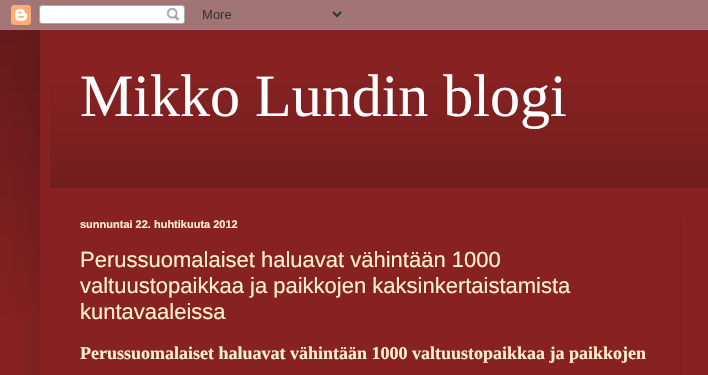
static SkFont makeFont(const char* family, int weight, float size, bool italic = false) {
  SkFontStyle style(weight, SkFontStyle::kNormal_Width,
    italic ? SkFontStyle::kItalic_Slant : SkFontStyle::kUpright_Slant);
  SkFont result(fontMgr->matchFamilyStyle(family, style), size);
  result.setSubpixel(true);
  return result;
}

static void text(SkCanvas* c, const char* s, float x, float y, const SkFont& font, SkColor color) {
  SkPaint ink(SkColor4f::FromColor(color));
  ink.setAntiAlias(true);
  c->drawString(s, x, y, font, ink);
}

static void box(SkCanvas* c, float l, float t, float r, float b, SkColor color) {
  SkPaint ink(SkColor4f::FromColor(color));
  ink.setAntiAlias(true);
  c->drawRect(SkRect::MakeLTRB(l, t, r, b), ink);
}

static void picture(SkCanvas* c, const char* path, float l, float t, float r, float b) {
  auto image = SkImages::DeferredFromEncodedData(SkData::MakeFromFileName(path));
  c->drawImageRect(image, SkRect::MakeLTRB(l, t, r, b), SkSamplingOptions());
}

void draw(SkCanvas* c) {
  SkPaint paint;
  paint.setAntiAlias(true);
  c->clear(0xff882222);
  picture(c, "img_01.png", 0, 0, 708, 314);
  paint.setColor(0x26000000);
  paint.setMaskFilter(SkMaskFilter::MakeBlur(kNormal_SkBlurStyle, 20));
  c->drawRect(SkRect::MakeLTRB(40, 30, 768, 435), paint);
  paint.setMaskFilter(nullptr);
  picture(c, "img_02.png", 0, 0, 708, 30);
  box(c, 40, 30, 708, 375, 0xff882222);
  picture(c, "img_03.png", 50, 82, 708, 188);
  SkFont face1 = makeFont("Liberation Serif", 400, 60);
  text(c, "Mikko Lundin blogi", 80, 116, face1, 0xffffffff);
  SkFont face2 = makeFont("Liberation Sans", 700, 11);
  text(c, "sunnuntai 22. huhtikuuta 2012", 80, 228, face2, 0xfffff2cc);
  SkFont face3 = makeFont("Liberation Sans", 400, 22);
  text(c, "Perussuomalaiset haluavat vähintään 1000", 80, 267, face3, 0xfffff2cc);
  text(c, "valtuustopaikkaa ja paikkojen kaksinkertaistamista", 80, 293, face3, 0xfffff2cc);
  text(c, "kuntavaaleissa", 80, 319, face3, 0xfffff2cc);
  SkFont face4 = makeFont("Liberation Serif", 700, 18);
  text(c, "Perussuomalaiset haluavat vähintään 1000 valtuustopaikkaa ja paikkojen", 80, 359, face4, 0xfffff2cc);
  box(c, 680, 218, 681, 375, 0xff772222);
}
